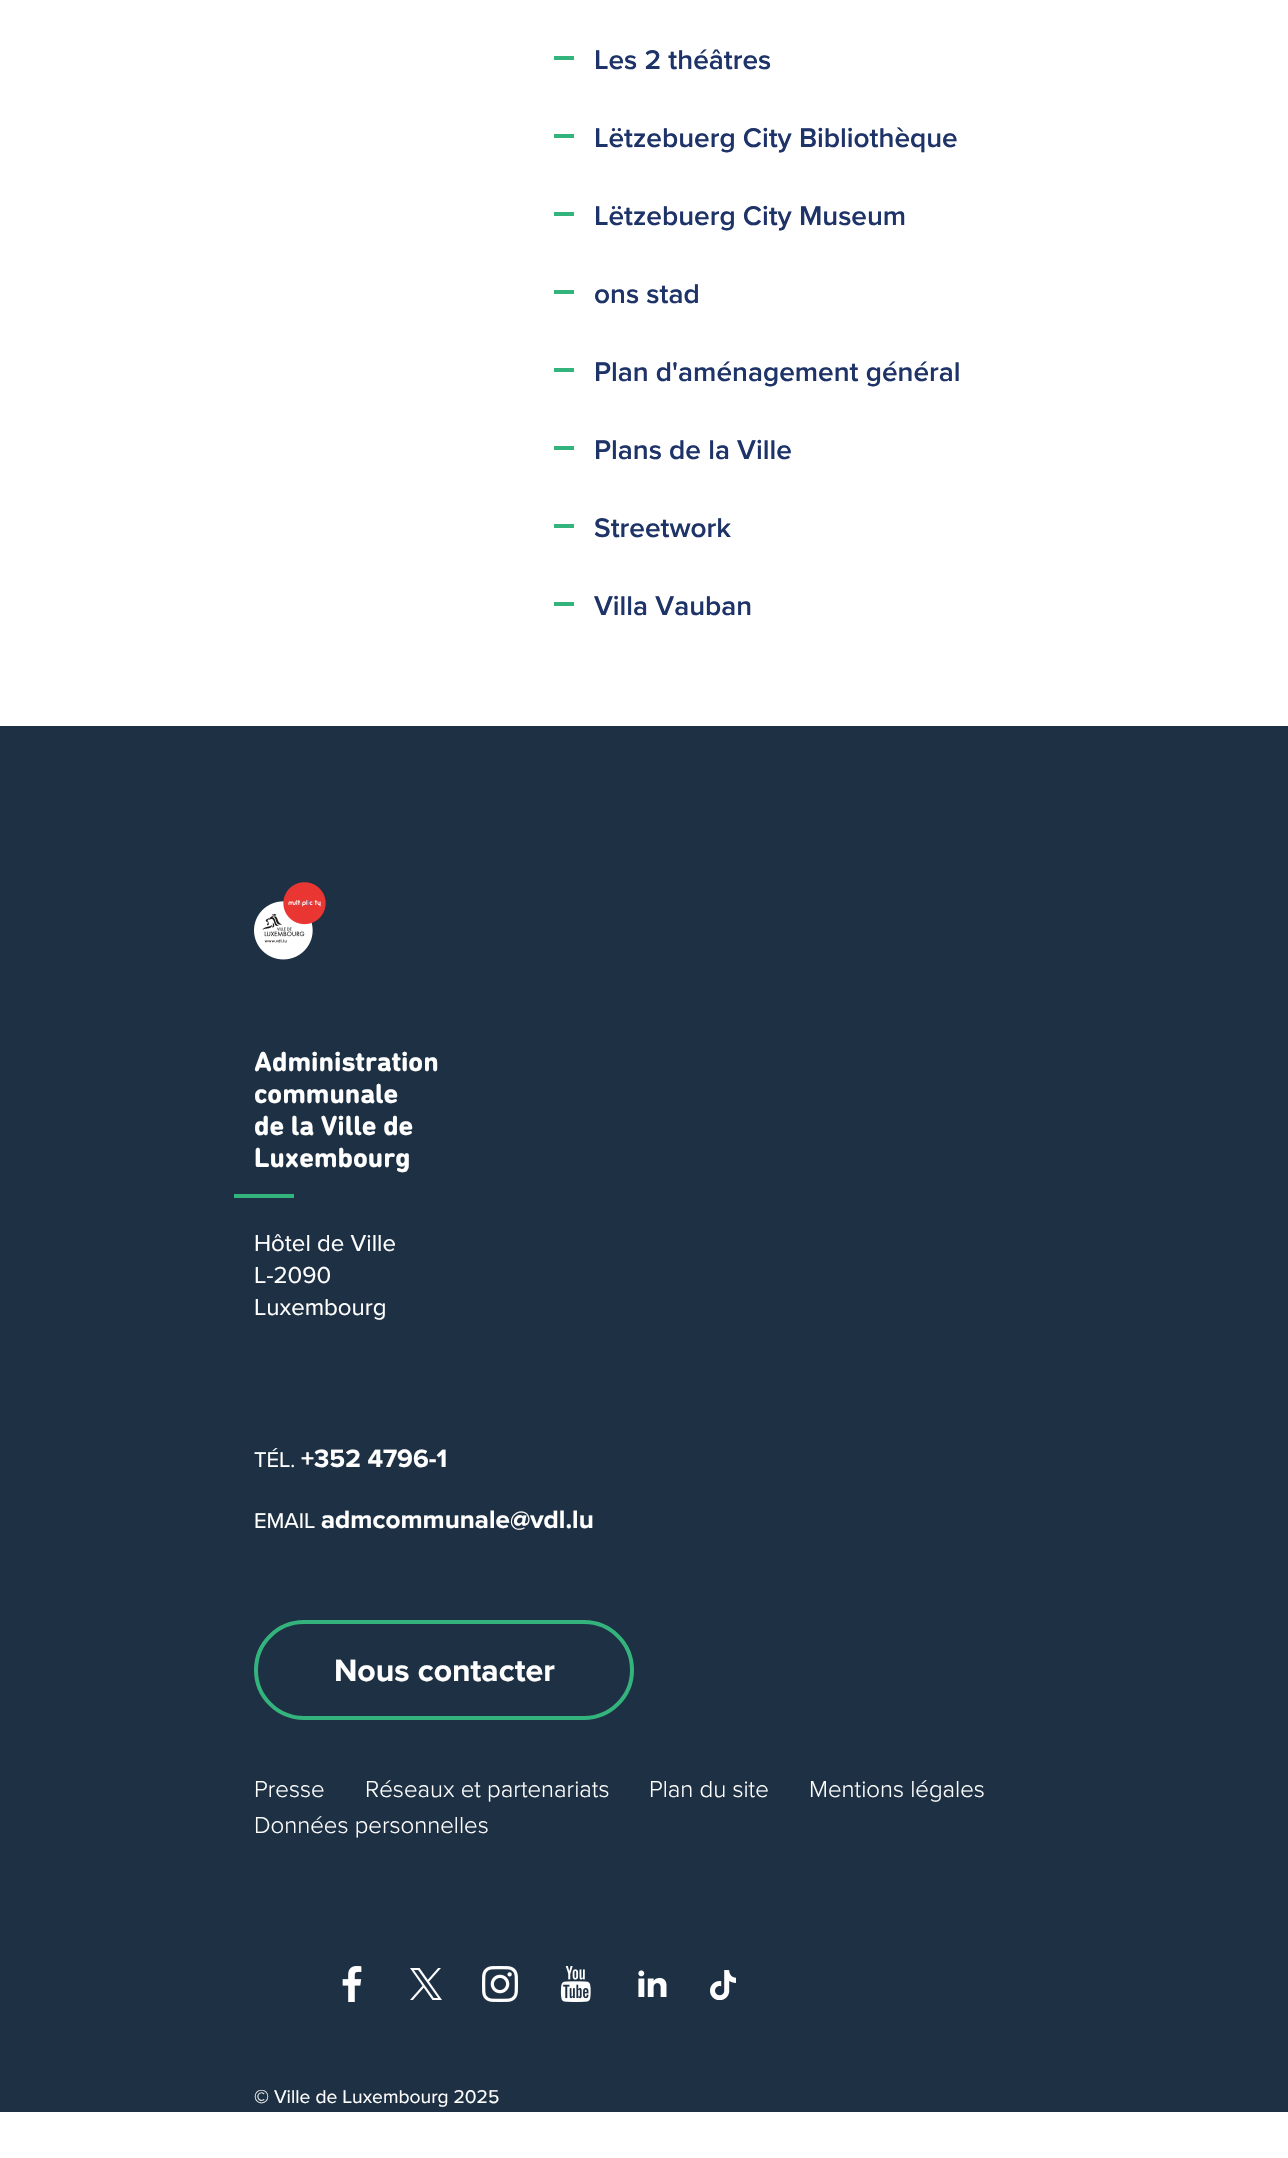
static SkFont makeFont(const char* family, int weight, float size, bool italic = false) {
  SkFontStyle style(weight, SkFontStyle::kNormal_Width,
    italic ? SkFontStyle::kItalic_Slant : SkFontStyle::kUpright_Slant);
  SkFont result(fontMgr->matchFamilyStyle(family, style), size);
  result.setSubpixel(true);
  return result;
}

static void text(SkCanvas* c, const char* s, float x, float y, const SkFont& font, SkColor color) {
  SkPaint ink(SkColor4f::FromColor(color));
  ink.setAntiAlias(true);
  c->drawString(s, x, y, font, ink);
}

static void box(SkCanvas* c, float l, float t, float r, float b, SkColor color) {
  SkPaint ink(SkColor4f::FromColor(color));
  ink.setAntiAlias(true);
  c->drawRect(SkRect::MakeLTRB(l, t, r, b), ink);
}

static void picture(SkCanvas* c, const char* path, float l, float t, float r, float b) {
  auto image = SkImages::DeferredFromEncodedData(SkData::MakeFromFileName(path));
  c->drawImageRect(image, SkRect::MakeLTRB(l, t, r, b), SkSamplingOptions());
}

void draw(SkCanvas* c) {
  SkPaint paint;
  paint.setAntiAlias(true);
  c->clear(0xffffffff);
  box(c, 554, 56, 574, 60, 0xff34b47d);
  SkFont face1 = makeFont("Proxima Nova", 600, 28);
  text(c, "Les 2 théâtres", 594, 69, face1, 0xff1e3368);
  box(c, 554, 134, 574, 138, 0xff34b47d);
  text(c, "Lëtzebuerg City Bibliothèque", 594, 147, face1, 0xff1e3368);
  box(c, 554, 212, 574, 216, 0xff34b47d);
  text(c, "Lëtzebuerg City Museum", 594, 225, face1, 0xff1e3368);
  box(c, 554, 290, 574, 294, 0xff34b47d);
  text(c, "ons stad", 594, 303, face1, 0xff1e3368);
  box(c, 554, 368, 574, 372, 0xff34b47d);
  text(c, "Plan d'aménagement général", 594, 381, face1, 0xff1e3368);
  box(c, 554, 446, 574, 450, 0xff34b47d);
  text(c, "Plans de la Ville", 594, 459, face1, 0xff1e3368);
  box(c, 554, 524, 574, 528, 0xff34b47d);
  text(c, "Streetwork", 594, 537, face1, 0xff1e3368);
  box(c, 554, 602, 574, 606, 0xff34b47d);
  text(c, "Villa Vauban", 594, 615, face1, 0xff1e3368);
  box(c, 0, 726, 1288, 2112, 0xff1e3043);
  picture(c, "img_01.png", 254, 882, 326, 960);
  SkFont face2 = makeFont("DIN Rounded", 400, 28);
  text(c, "Administration", 254, 1071, face2, 0xffffffff);
  text(c, "communale", 254, 1103, face2, 0xffffffff);
  text(c, "de la Ville de", 254, 1135, face2, 0xffffffff);
  text(c, "Luxembourg", 254, 1167, face2, 0xffffffff);
  box(c, 234, 1194, 294, 1198, 0xff34b47d);
  SkFont face3 = makeFont("Proxima Nova", 400, 24);
  text(c, "Hôtel de Ville", 254, 1251, face3, 0xffffffff);
  text(c, "L-2090", 254, 1283, face3, 0xffffffff);
  text(c, "Luxembourg", 254, 1315, face3, 0xffffffff);
  SkFont face4 = makeFont("Proxima Nova", 400, 22);
  text(c, "TÉL.", 254, 1467, face4, 0xffffffff);
  SkFont face5 = makeFont("Proxima Nova", 700, 26);
  text(c, "+352 4796-1", 301, 1467, face5, 0xffffffff);
  text(c, "EMAIL", 254, 1528, face4, 0xffffffff);
  text(c, "admcommunale@vdl.lu", 321, 1528, face5, 0xffffffff);
  paint.setStyle(SkPaint::kStroke_Style);
  paint.setStrokeWidth(4);
  paint.setColor(0xff34b47d);
  c->drawRoundRect(SkRect::MakeLTRB(256, 1622, 632, 1718), 48, 48, paint);
  SkFont face6 = makeFont("Proxima Nova", 700, 32);
  text(c, "Nous contacter", 334, 1681, face6, 0xffffffff);
  SkFont face7 = makeFont("Proxima Nova", 300, 24);
  text(c, "Presse", 254, 1797, face7, 0xffffffff);
  text(c, "Réseaux et partenariats", 365, 1797, face7, 0xffffffff);
  text(c, "Plan du site", 649, 1797, face7, 0xffffffff);
  text(c, "Mentions légales", 809, 1797, face7, 0xffffffff);
  text(c, "Données personnelles", 254, 1833, face7, 0xffffffff);
  picture(c, "img_02.png", 342, 1966, 362, 2002);
  picture(c, "img_03.png", 410, 1968, 442, 2000);
  picture(c, "img_04.png", 482, 1966, 518, 2002);
  picture(c, "img_05.png", 560, 1966, 591, 2002);
  picture(c, "img_06.png", 638, 1970, 667, 1997);
  picture(c, "img_07.png", 710, 1970, 736, 2000);
  SkFont face8 = makeFont("Proxima Nova", 400, 19.25f);
  text(c, "© Ville de Luxembourg 2025", 254, 2103, face8, 0xffffffff);
}
